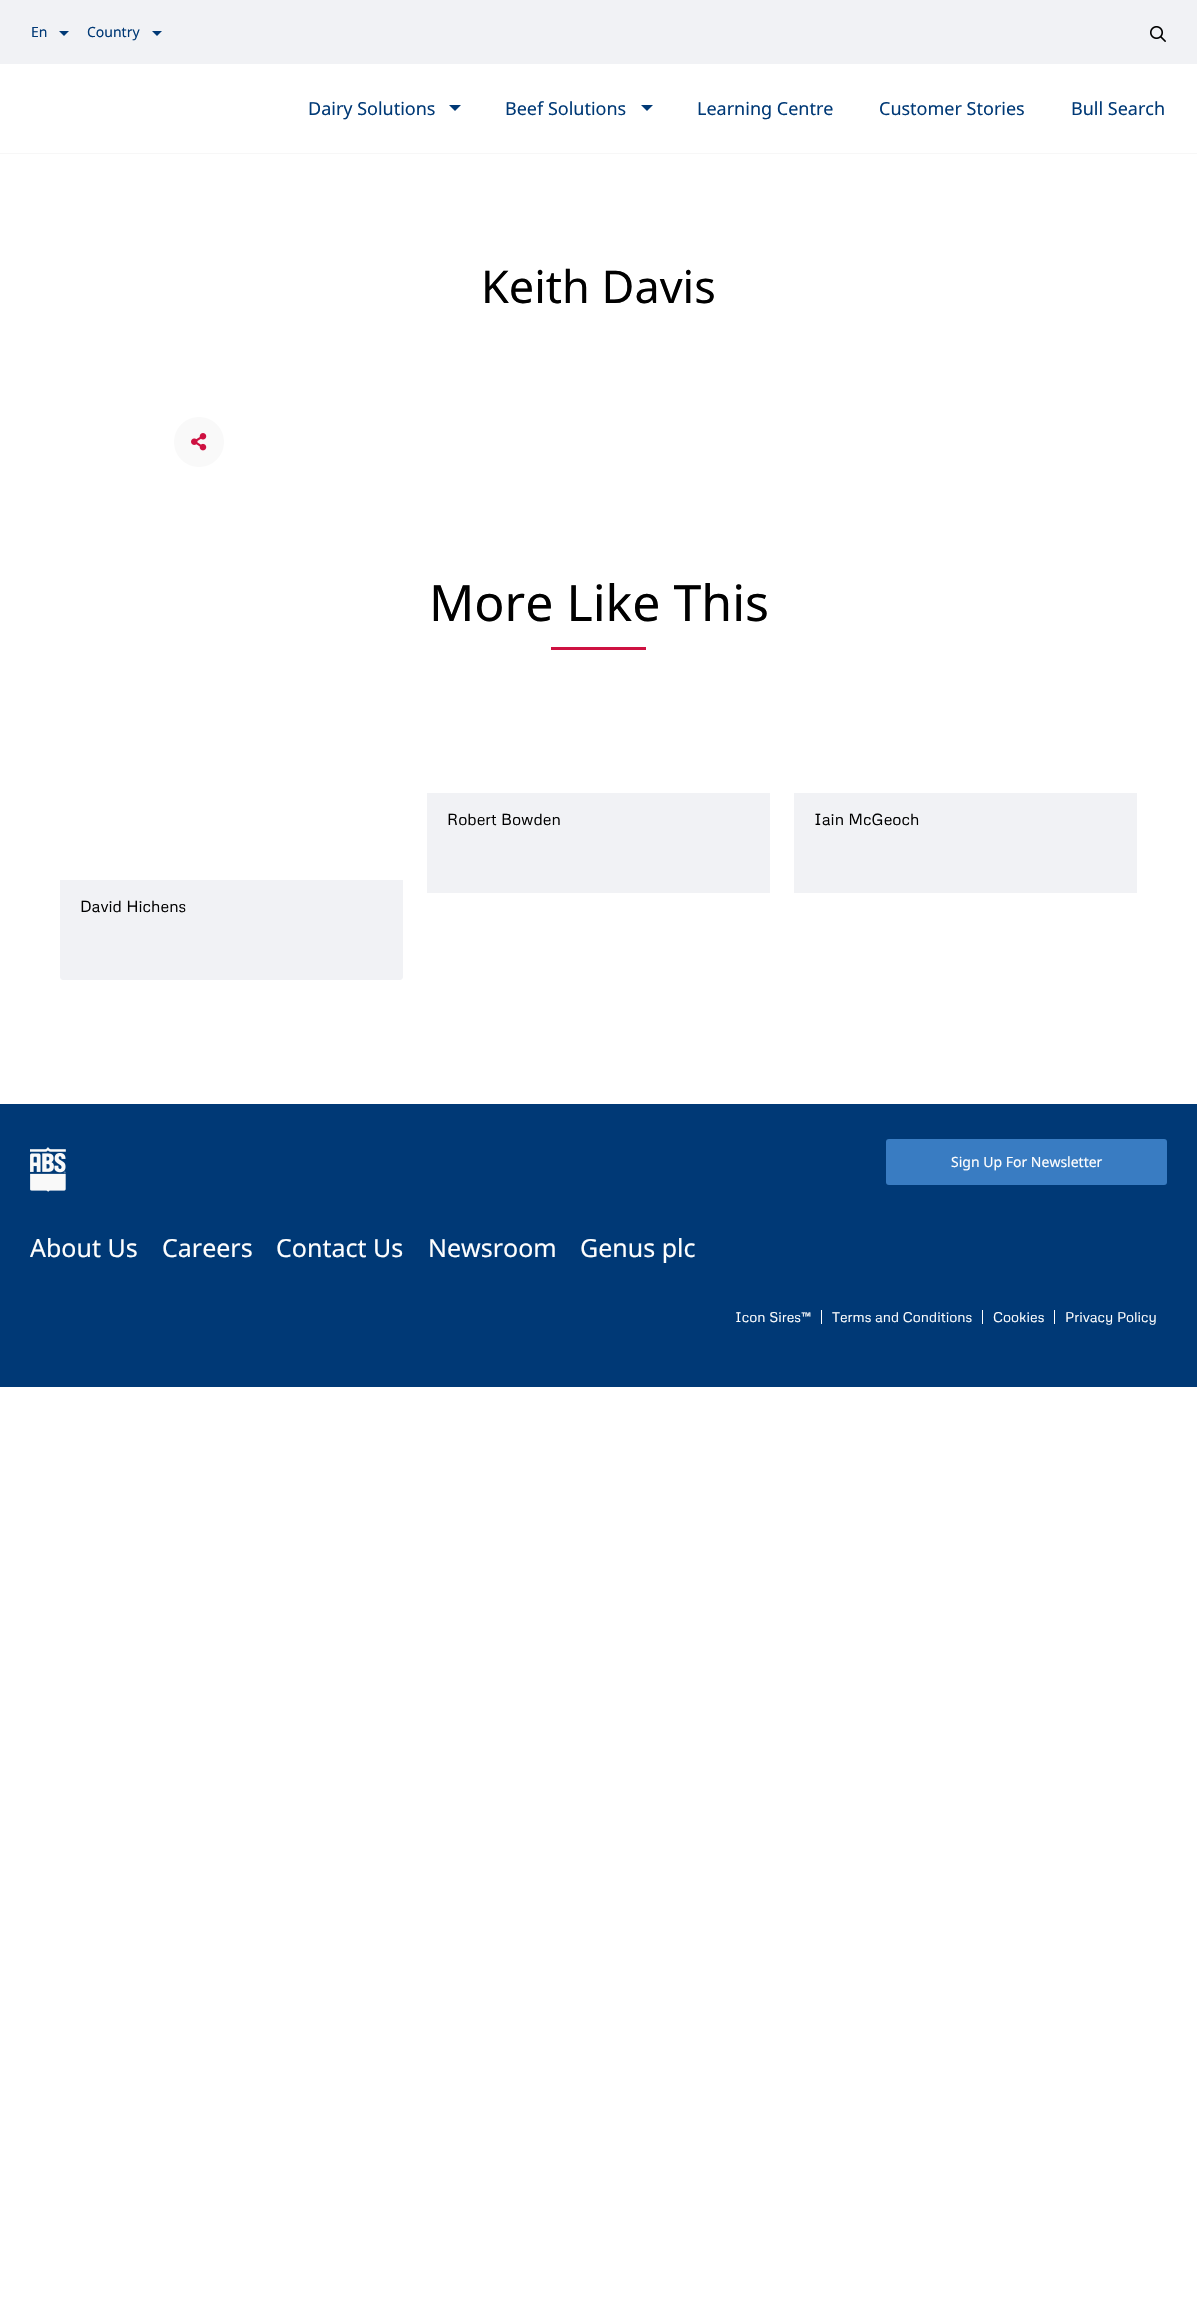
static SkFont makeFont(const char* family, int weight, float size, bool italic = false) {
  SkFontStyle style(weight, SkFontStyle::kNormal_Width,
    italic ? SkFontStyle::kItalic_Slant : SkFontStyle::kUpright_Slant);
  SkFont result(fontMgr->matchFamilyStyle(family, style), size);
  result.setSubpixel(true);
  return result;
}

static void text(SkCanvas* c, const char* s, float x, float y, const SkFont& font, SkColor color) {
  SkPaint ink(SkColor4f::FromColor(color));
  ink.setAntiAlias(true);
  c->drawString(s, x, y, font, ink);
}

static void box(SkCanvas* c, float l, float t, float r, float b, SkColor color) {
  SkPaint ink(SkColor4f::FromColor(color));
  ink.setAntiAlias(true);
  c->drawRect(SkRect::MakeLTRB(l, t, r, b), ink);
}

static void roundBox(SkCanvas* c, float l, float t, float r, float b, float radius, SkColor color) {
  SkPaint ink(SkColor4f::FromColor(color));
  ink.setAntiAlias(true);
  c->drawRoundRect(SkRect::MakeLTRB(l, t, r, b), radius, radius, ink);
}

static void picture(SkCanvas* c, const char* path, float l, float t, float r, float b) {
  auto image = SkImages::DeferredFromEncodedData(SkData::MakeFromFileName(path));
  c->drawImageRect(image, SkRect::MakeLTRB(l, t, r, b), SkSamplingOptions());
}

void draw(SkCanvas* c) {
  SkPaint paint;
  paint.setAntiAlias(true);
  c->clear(0xffffffff);
  box(c, 0, 0, 1197, 64, 0xfff1f2f5);
  SkFont face1 = makeFont("Noto Sans", 400, 14);
  text(c, "En", 31, 37, face1, 0xff003976);
  paint.setColor(0xff003976);
  c->drawPath(SkPathBuilder().moveTo(59, 31).lineTo(69, 31).lineTo(64, 36).close().detach(), paint);
  text(c, "Country", 87, 37, face1, 0xff003976);
  c->drawPath(SkPathBuilder().moveTo(152, 31).lineTo(162, 31).lineTo(157, 36).close().detach(), paint);
  picture(c, "img_01.png", 1150, 26, 1166, 42);
  box(c, 0, 153, 1197, 154, 0xfff7f7f7);
  SkFont face2 = makeFont("Noto Sans", 400, 18);
  text(c, "Dairy Solutions", 308, 115, face2, 0xff003976);
  c->drawPath(SkPathBuilder().moveTo(449, 105).lineTo(461, 105).lineTo(455, 111).close().detach(), paint);
  text(c, "Beef Solutions", 505, 115, face2, 0xff003976);
  c->drawPath(SkPathBuilder().moveTo(641, 105).lineTo(653, 105).lineTo(647, 111).close().detach(), paint);
  text(c, "Learning Centre", 697, 115, face2, 0xff003976);
  text(c, "Customer Stories", 879, 115, face2, 0xff003976);
  text(c, "Bull Search", 1071, 115, face2, 0xff003976);
  SkFont face3 = makeFont("Noto Sans", 400, 45);
  text(c, "Keith Davis", 481, 303, face3, 0xff000000);
  picture(c, "img_02.png", 174, 417, 224, 467);
  SkFont face4 = makeFont("Noto Sans", 400, 50);
  text(c, "More Like This", 429, 621, face4, 0xff000000);
  box(c, 551, 647, 646, 650, 0xffce1141);
  box(c, 427, 793, 770, 893, 0xfff1f2f5);
  SkFont face5 = makeFont("Metrophobic", 400, 16);
  text(c, "Robert Bowden", 447, 825, face5, 0xff000000);
  box(c, 794, 793, 1137, 893, 0xfff1f2f5);
  text(c, "Iain McGeoch", 814, 825, face5, 0xff000000);
  paint.setColor(0xfff1f2f5);
  c->drawPath(SkPathBuilder().moveTo(60, 880).lineTo(403, 880).lineTo(403, 977).cubicTo(403, 978.5f, 401.5f, 980, 400, 980).lineTo(63, 980).cubicTo(61.5f, 980, 60, 978.5f, 60, 977).close().detach(), paint);
  text(c, "David Hichens", 80, 912, face5, 0xff000000);
  box(c, 0, 1104, 1197, 1387, 0xff003976);
  picture(c, "img_03.png", 30, 1147, 66, 1192);
  roundBox(c, 886, 1139, 1167, 1185, 3, 0xff397cc2);
  text(c, "Sign Up For Newsletter", 951, 1167, face1, 0xfffefefe);
  SkFont face6 = makeFont("Noto Sans", 400, 25);
  text(c, "About Us", 30, 1257, face6, 0xfffefefe);
  text(c, "Careers", 162, 1257, face6, 0xfffefefe);
  text(c, "Contact Us", 276, 1257, face6, 0xfffefefe);
  text(c, "Newsroom", 428, 1257, face6, 0xfffefefe);
  text(c, "Genus plc", 580, 1257, face6, 0xfffefefe);
  box(c, 821, 1310, 822, 1324, 0xfffefefe);
  SkFont face7 = makeFont("Metrophobic", 400, 14);
  text(c, "Icon Sires™", 735, 1322, face7, 0xfffefefe);
  box(c, 982, 1310, 983, 1324, 0xfffefefe);
  text(c, "Terms and Conditions", 832, 1322, face7, 0xfffefefe);
  box(c, 1054, 1310, 1055, 1324, 0xfffefefe);
  text(c, "Cookies", 993, 1322, face7, 0xfffefefe);
  text(c, "Privacy Policy", 1065, 1322, face7, 0xfffefefe);
}
